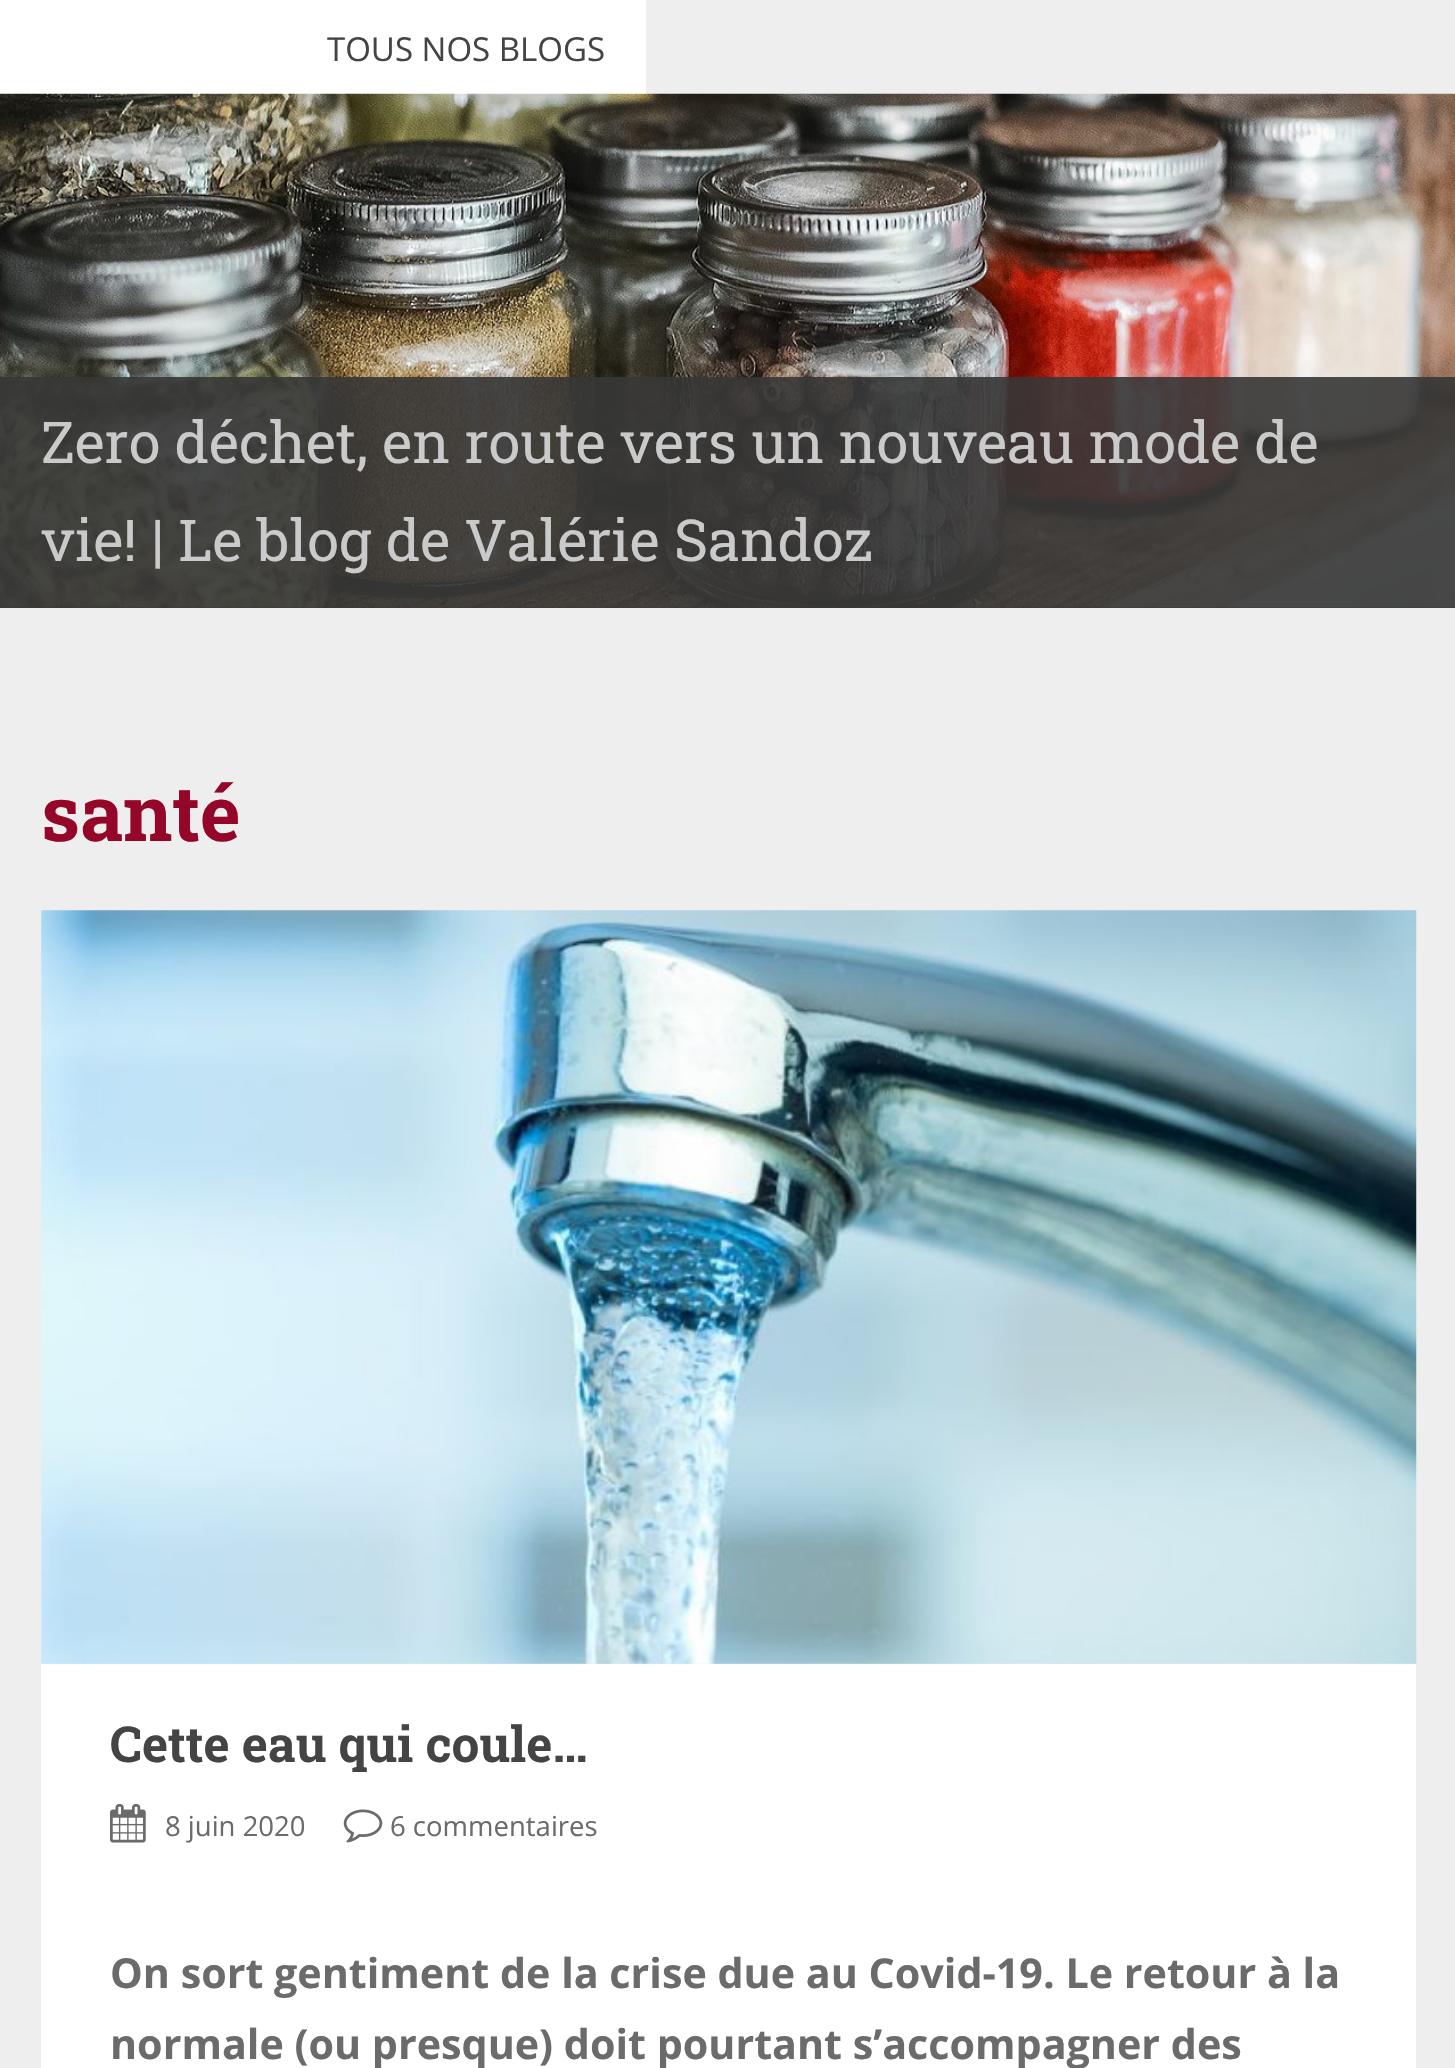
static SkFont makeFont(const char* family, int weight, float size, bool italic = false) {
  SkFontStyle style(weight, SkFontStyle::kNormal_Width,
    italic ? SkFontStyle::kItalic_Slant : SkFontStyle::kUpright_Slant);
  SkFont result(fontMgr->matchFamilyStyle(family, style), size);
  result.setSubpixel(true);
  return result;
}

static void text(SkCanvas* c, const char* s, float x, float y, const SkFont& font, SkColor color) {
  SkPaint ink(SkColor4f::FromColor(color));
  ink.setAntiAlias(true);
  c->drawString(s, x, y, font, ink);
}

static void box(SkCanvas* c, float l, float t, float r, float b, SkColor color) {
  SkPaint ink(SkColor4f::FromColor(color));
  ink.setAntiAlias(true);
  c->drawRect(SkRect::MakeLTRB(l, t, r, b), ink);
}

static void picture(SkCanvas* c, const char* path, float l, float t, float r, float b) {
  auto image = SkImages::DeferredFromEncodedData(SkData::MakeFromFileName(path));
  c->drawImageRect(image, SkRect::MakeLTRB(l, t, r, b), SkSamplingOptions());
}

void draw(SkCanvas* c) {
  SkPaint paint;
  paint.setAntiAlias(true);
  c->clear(0xffeeeeee);
  box(c, 0, 0, 646, 94, 0xffffffff);
  SkFont face1 = makeFont("Open Sans", 400, 33);
  text(c, "TOUS NOS BLOGS", 327, 61, face1, 0xff444444);
  box(c, 0, 607, 1455, 608, 0xff363636);
  picture(c, "img_01.png", 0, 93, 1455, 608);
  box(c, 0, 377, 1455, 608, 0xe6363636);
  SkFont face2 = makeFont("Roboto Slab", 400, 57.75f);
  text(c, "Zero déchet, en route vers un nouveau mode de", 41, 463, face2, 0xffcbcaca);
  text(c, "vie! | Le blog de Valérie Sandoz", 41, 561, face2, 0xffcbcaca);
  SkFont face3 = makeFont("Roboto Slab", 700, 77);
  text(c, "santé", 41, 841, face3, 0xff950728);
  picture(c, "img_02.png", 41, 910, 1417, 1664);
  box(c, 41, 1664, 1416, 2068, 0xffffffff);
  SkFont face4 = makeFont("Roboto Slab", 700, 49.5f);
  text(c, "Cette eau qui coule…", 110, 1762, face4, 0xff444444);
  picture(c, "img_03.png", 110, 1804, 146, 1843);
  SkFont face5 = makeFont("Open Sans", 400, 27.5f);
  text(c, "8 juin 2020", 165, 1836, face5, 0xff6b6b6b);
  picture(c, "img_04.png", 343, 1809, 383, 1843);
  text(c, "6 commentaires", 390, 1836, face5, 0xff6b6b6b);
  SkFont face6 = makeFont("Open Sans", 700, 41.25f);
  text(c, "On sort gentiment de la crise due au Covid-19. Le retour à la", 110, 1988, face6, 0xff6b6b6b);
  text(c, "normale (ou presque) doit pourtant s’accompagner des", 110, 2059, face6, 0xff6b6b6b);
}
